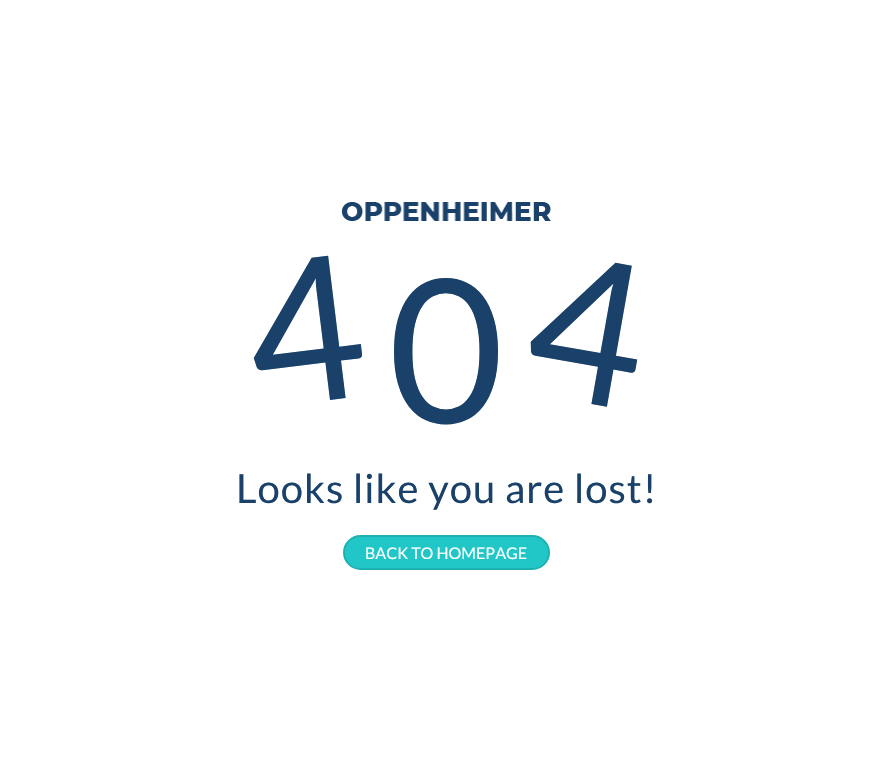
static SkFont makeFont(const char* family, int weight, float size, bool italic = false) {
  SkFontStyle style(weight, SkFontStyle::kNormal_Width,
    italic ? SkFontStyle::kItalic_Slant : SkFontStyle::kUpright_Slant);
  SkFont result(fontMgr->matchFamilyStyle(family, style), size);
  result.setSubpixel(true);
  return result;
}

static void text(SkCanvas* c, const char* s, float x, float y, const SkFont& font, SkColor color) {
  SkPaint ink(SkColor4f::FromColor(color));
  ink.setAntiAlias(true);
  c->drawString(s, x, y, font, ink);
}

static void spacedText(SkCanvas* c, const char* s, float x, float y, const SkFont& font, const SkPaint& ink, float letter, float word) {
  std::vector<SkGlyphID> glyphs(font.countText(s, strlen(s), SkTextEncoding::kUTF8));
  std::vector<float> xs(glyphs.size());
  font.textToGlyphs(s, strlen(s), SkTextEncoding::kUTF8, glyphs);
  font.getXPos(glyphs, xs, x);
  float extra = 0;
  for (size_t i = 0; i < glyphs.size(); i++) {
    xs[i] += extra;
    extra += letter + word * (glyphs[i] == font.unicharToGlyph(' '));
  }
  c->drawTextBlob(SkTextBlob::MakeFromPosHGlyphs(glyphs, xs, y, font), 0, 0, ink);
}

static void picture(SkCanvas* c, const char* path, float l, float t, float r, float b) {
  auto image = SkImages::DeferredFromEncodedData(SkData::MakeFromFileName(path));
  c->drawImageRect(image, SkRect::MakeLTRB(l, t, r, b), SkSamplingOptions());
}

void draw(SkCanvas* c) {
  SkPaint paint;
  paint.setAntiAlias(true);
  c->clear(0xffffffff);
  picture(c, "img_01.png", 341, 202, 551, 221);
  SkFont face1 = makeFont("Lato", 400, 200);
  c->save();
  c->rotate(-7, 256, 409);
  text(c, "4", 256, 409, face1, 0xff1a416a);
  c->restore();
  text(c, "0", 388, 423, face1, 0xff1a416a);
  c->save();
  c->rotate(10, 518, 391);
  text(c, "4", 518, 391, face1, 0xff1a416a);
  c->restore();
  SkFont face2 = makeFont("Lato", 400, 40);
  paint.setColor(0xff1a416a);
  spacedText(c, "Looks like you are lost!", 236, 503, face2, paint, 1, 0);
  paint.setColor(0xff21c7c7);
  c->drawRoundRect(SkRect::MakeLTRB(344, 536, 549, 569), 16.5f, 16.5f, paint);
  paint.setStyle(SkPaint::kStroke_Style);
  paint.setStrokeWidth(2);
  paint.setColor(0xff1db1b1);
  c->drawRoundRect(SkRect::MakeLTRB(344, 536, 549, 569), 16.5f, 16.5f, paint);
  SkFont face3 = makeFont("Lato", 400, 16);
  text(c, "BACK TO HOMEPAGE", 365, 559, face3, 0xffffffff);
}
